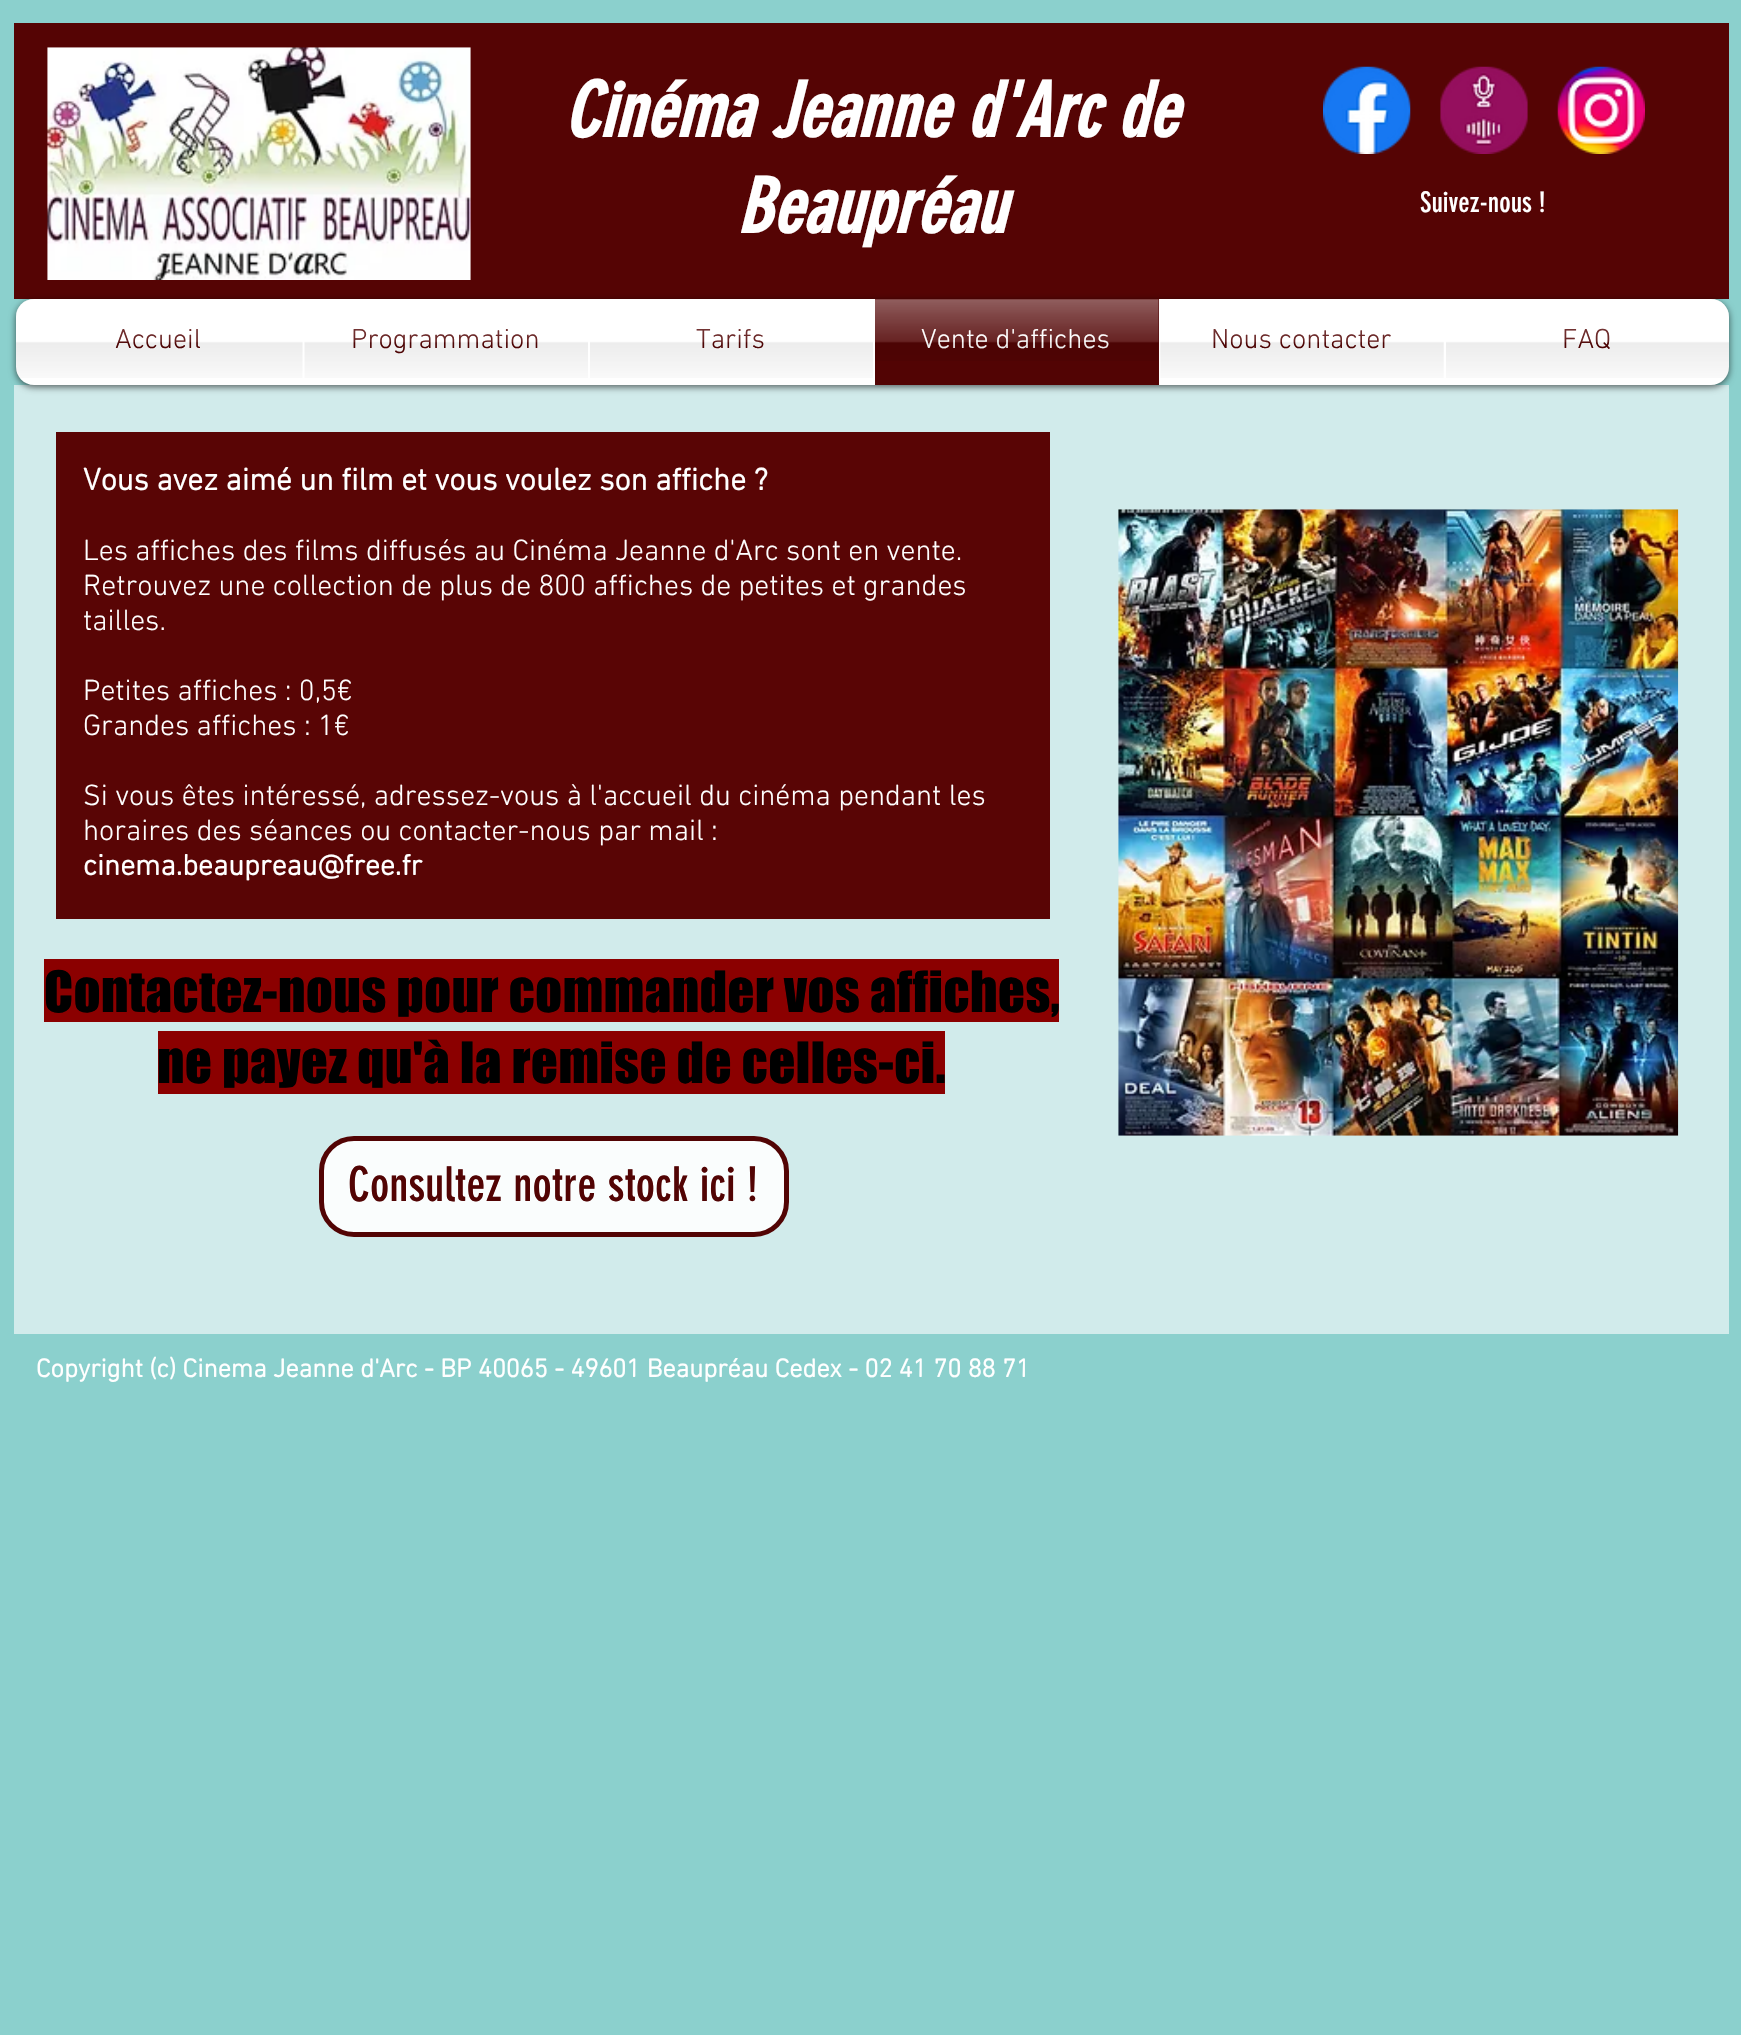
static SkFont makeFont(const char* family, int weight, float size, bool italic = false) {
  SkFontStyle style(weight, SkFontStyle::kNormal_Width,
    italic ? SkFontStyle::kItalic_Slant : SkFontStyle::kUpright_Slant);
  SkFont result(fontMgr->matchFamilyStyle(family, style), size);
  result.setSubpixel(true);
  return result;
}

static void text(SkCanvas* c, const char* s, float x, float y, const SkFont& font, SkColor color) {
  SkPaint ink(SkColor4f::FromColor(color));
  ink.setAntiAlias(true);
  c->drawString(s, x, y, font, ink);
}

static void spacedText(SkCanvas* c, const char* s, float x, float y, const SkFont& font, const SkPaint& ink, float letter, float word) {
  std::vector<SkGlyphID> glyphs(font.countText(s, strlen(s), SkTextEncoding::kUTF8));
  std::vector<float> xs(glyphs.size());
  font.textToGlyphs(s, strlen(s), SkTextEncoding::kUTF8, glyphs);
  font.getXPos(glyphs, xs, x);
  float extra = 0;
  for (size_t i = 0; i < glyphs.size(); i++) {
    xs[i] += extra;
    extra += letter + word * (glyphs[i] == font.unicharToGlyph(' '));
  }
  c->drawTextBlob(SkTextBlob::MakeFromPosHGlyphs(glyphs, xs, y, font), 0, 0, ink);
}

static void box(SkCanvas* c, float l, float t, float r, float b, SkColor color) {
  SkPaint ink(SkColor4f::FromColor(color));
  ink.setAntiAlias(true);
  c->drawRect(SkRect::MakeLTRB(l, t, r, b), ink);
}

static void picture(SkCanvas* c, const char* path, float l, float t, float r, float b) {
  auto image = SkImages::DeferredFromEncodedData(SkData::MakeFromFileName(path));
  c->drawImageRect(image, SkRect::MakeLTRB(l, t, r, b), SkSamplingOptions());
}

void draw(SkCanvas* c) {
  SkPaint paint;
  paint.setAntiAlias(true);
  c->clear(0xff8bd0cd);
  box(c, 14, 23, 1729, 299, 0xff550404);
  picture(c, "img_01.png", 47, 47, 471, 280);
  SkFont face1 = makeFont("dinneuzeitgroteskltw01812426", 700, 75.25f, true);
  text(c, "Cinéma Jeanne d'Arc de", 564, 137, face1, 0xffffffff);
  text(c, "Beaupréau", 737, 233, face1, 0xffffffff);
  picture(c, "img_02.png", 1323, 66, 1411, 154);
  picture(c, "img_03.png", 1440, 66, 1528, 154);
  picture(c, "img_04.png", 1557, 66, 1645, 154);
  SkFont face2 = makeFont("dinneuzeitgroteskltw01812426", 400, 28);
  text(c, "Suivez-nous !", 1420, 212, face2, 0xffffffff);
  box(c, 14, 385, 1729, 1334, 0xffd1ebeb);
  paint.setColor(0x99000000);
  paint.setMaskFilter(SkMaskFilter::MakeBlur(kNormal_SkBlurStyle, 3.5f));
  c->drawRoundRect(SkRect::MakeLTRB(16, 301, 1729, 387), 18, 18, paint);
  paint.setMaskFilter(nullptr);
  picture(c, "img_05.png", 16, 299, 1729, 376);
  paint.setColor(0xffffffff);
  c->drawPath(SkPathBuilder().moveTo(34, 299).lineTo(303, 299).lineTo(303, 385).lineTo(34, 385).cubicTo(24, 385, 16, 377, 16, 367).lineTo(16, 317).cubicTo(16, 307, 24, 299, 34, 299).close().detach(), paint);
  SkFont face3 = makeFont("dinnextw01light", 300, 28);
  text(c, "Accueil", 115, 348, face3, 0xff520404);
  picture(c, "img_06.png", 16, 299, 303, 378);
  box(c, 303, 299, 875, 385, 0xffffffff);
  text(c, "Programmation", 351, 348, face3, 0xff520404);
  picture(c, "img_07.png", 304, 329, 588, 378);
  text(c, "Tarifs", 696, 348, face3, 0xff520404);
  picture(c, "img_08.png", 590, 329, 873, 378);
  box(c, 875, 299, 1159, 385, 0xff520404);
  text(c, "Vente d'affiches", 921, 348, face3, 0xffffffff);
  picture(c, "img_09.png", 875, 299, 1159, 361);
  box(c, 1159, 299, 1444, 385, 0xffffffff);
  text(c, "Nous contacter", 1211, 348, face3, 0xff520404);
  picture(c, "img_10.png", 1160, 329, 1444, 378);
  c->drawPath(SkPathBuilder().moveTo(1444, 299).lineTo(1711, 299).cubicTo(1721, 299, 1729, 307, 1729, 317).lineTo(1729, 367).cubicTo(1729, 377, 1721, 385, 1711, 385).lineTo(1444, 385).close().detach(), paint);
  text(c, "FAQ", 1562, 348, face3, 0xff520404);
  picture(c, "img_11.png", 1446, 300, 1729, 378);
  box(c, 56, 432, 1050, 919, 0xff590505);
  SkFont face4 = makeFont("dinnextw01light", 700, 31.5f);
  text(c, "Vous avez aimé un film et vous voulez son affiche ?", 83, 490, face4, 0xffffffff);
  SkFont face5 = makeFont("dinnextw01light", 300, 29.75f);
  text(c, "Les affiches des films diffusés au Cinéma Jeanne d'Arc sont en vente.", 83, 560, face5, 0xffffffff);
  text(c, "Retrouvez une collection de plus de 800 affiches de petites et grandes", 83, 595, face5, 0xffffffff);
  text(c, "tailles.", 83, 630, face5, 0xffffffff);
  text(c, "Petites affiches : 0,5€", 83, 700, face5, 0xffffffff);
  text(c, "Grandes affiches : 1€", 83, 735, face5, 0xffffffff);
  text(c, "Si vous êtes intéressé, adressez-vous à l'accueil du cinéma pendant les", 83, 805, face5, 0xffffffff);
  text(c, "horaires des séances ou contacter-nous par mail :", 83, 840, face5, 0xffffffff);
  SkFont face6 = makeFont("dinnextw01light", 700, 29.75f);
  text(c, "cinema.beaupreau@free.fr", 83, 875, face6, 0xffffffff);
  picture(c, "img_12.png", 1118, 509, 1679, 1136);
  box(c, 44, 959, 1059, 1022, 0xff8b0000);
  SkFont face7 = makeFont("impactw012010", 400, 52.5f);
  paint.setColor(0xff000000);
  spacedText(c, "Contactez-nous pour commander vos affiches,", 44, 1012, face7, paint, 0.55f, 0);
  box(c, 158, 1031, 945, 1094, 0xff8b0000);
  spacedText(c, "ne payez qu'à la remise de celles-ci.", 157, 1083, face7, paint, 0.55f, 0);
  paint.setColor(0xfffafdfd);
  c->drawRoundRect(SkRect::MakeLTRB(321.5f, 1138.5f, 786.5f, 1234.5f), 32.5f, 32.5f, paint);
  paint.setStyle(SkPaint::kStroke_Style);
  paint.setStrokeWidth(5);
  paint.setColor(0xff520404);
  c->drawRoundRect(SkRect::MakeLTRB(321.5f, 1138.5f, 786.5f, 1234.5f), 32.5f, 32.5f, paint);
  SkFont face8 = makeFont("dinneuzeitgroteskltw01812426", 400, 47.25f);
  text(c, "Consultez notre stock ici !", 348, 1201, face8, 0xff520404);
  SkFont face9 = makeFont("dinnextw01light", 700, 26.25f);
  text(c, "Copyright (c) Cinema Jeanne d'Arc - BP 40065 - 49601 Beaupréau Cedex - 02 41 70 88 71", 36, 1377, face9, 0xffffffff);
}
